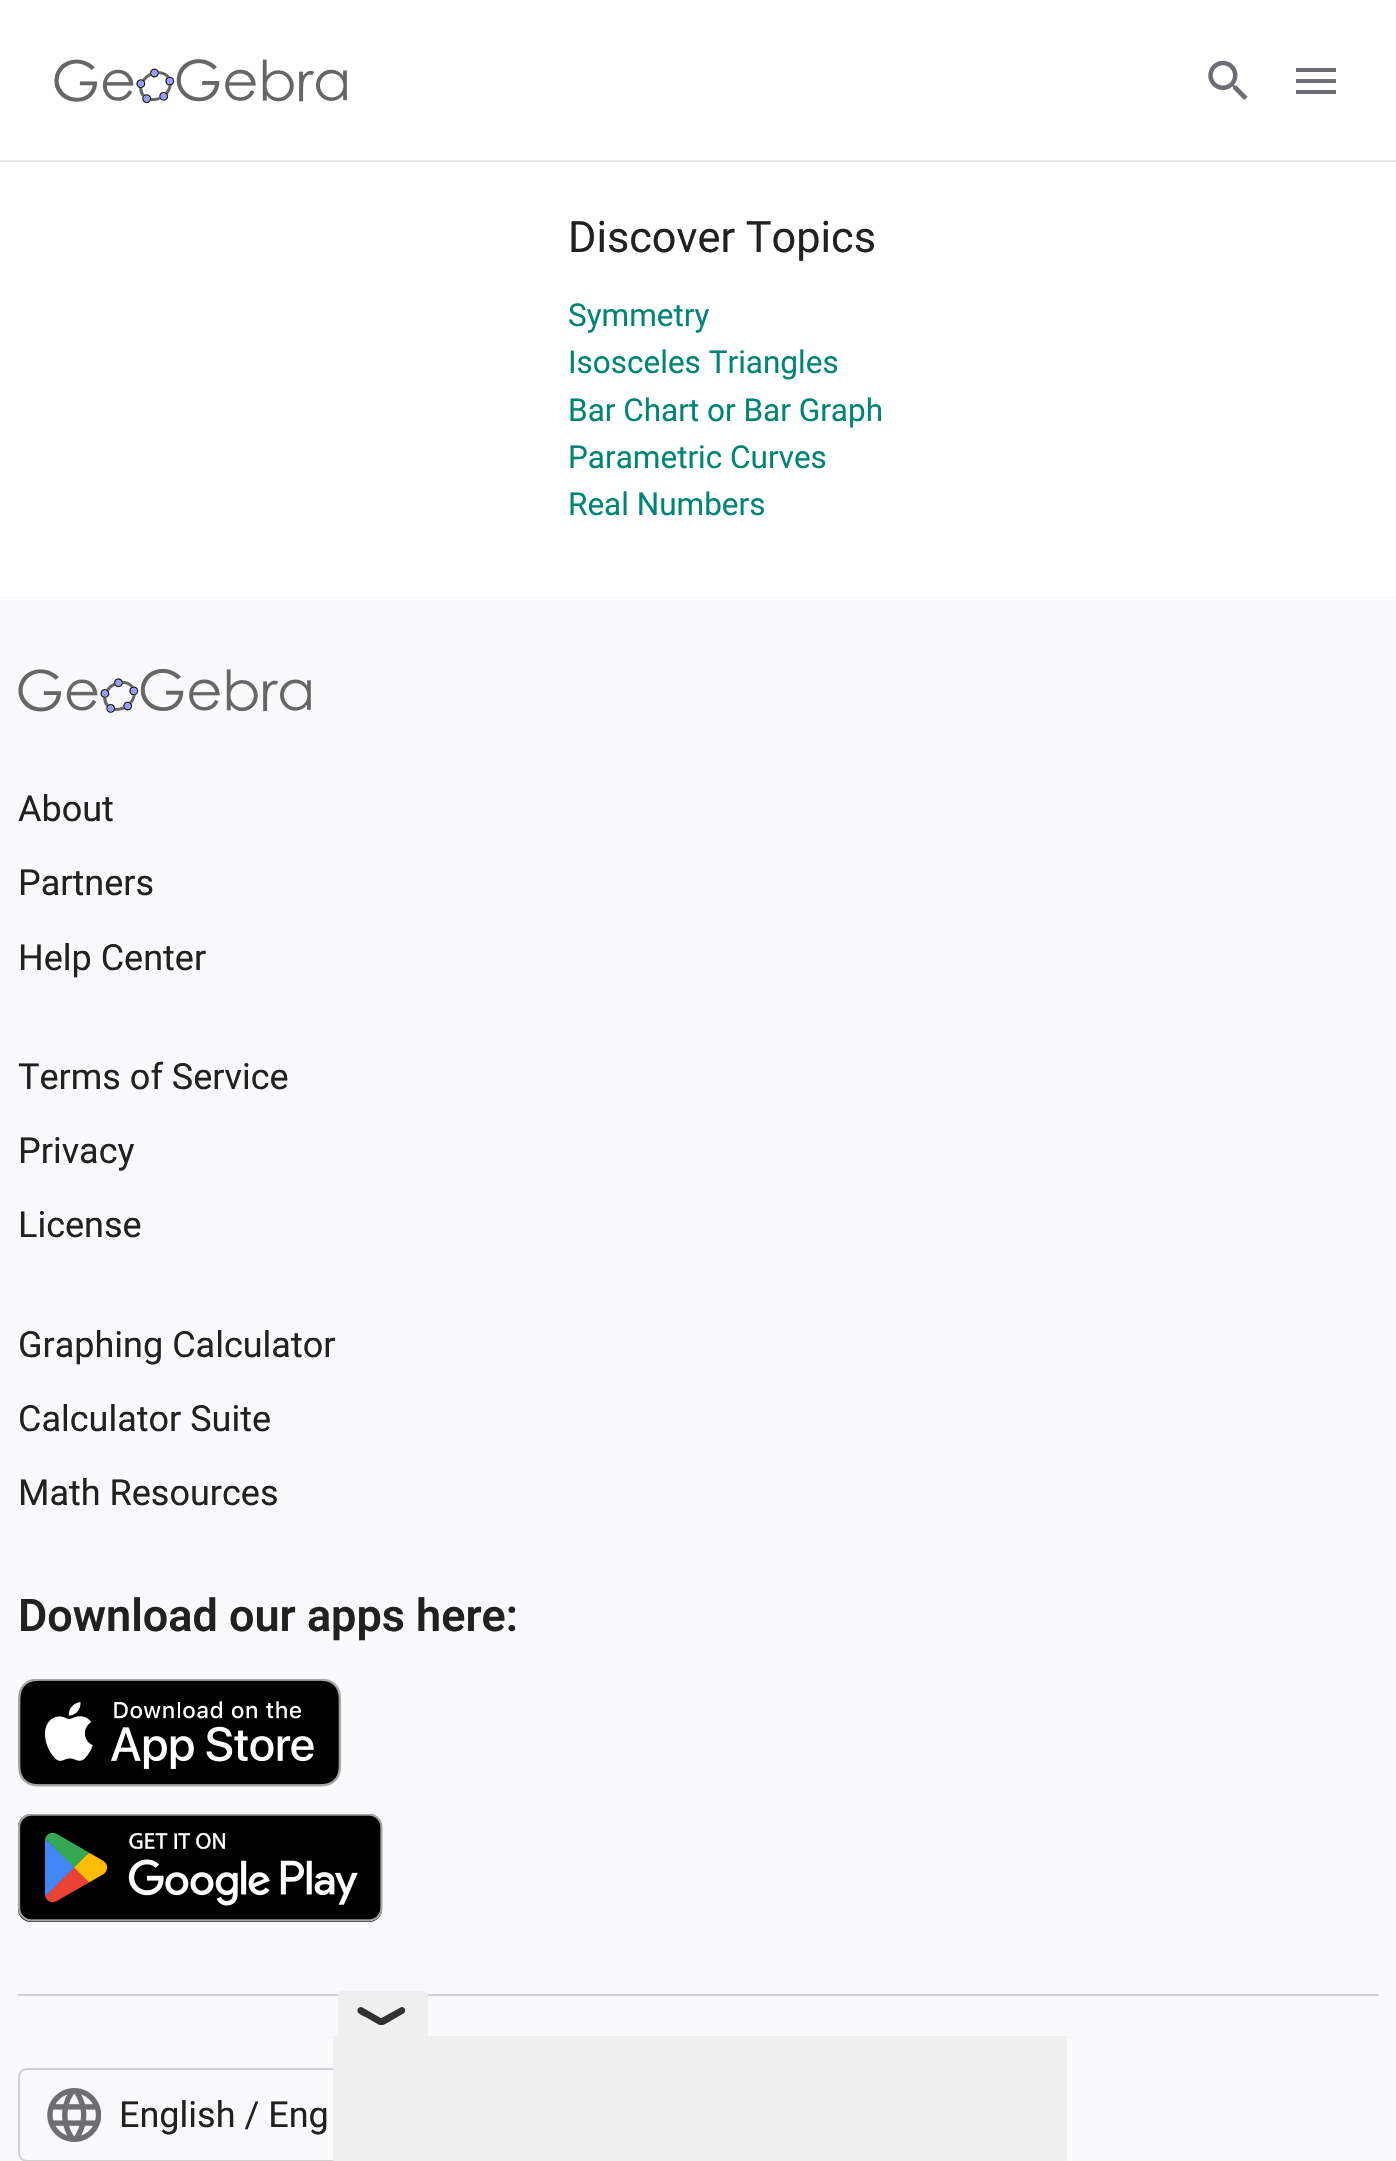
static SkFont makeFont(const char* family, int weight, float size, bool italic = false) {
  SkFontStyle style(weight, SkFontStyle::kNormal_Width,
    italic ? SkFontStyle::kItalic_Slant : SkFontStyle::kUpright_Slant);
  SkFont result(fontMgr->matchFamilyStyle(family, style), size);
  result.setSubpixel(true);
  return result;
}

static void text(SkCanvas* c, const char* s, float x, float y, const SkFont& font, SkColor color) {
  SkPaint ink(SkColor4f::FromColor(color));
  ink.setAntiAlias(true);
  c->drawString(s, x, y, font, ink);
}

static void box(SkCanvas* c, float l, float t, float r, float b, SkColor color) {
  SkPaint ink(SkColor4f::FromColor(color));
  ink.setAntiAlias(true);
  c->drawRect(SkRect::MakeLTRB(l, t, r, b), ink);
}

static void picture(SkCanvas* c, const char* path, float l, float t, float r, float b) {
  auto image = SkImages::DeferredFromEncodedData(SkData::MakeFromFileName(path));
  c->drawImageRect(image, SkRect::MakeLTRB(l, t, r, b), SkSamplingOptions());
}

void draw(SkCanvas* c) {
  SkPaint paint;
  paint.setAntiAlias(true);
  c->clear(0xffffffff);
  box(c, 0, 160, 1396, 162, 0xffe6e6eb);
  picture(c, "img_01.png", 54, 59, 347, 104);
  picture(c, "img_02.png", 1208, 60, 1248, 100);
  paint.setColor(0xff6e6d73);
  c->drawPath(SkPathBuilder().moveTo(1296, 68).lineTo(1336, 68).lineTo(1336, 72).lineTo(1296, 72).lineTo(1296, 68).moveTo(1296, 79).lineTo(1336, 79).lineTo(1336, 83).lineTo(1296, 83).lineTo(1296, 79).moveTo(1296, 90).lineTo(1336, 90).lineTo(1336, 94).lineTo(1296, 94).close().detach(), paint);
  SkFont face1 = makeFont("Roboto", 400, 43.25f);
  text(c, "Discover Topics", 568, 252, face1, 0xff212121);
  SkFont face2 = makeFont("Roboto", 400, 31.5f);
  text(c, "Symmetry", 568, 326, face2, 0xff008475);
  text(c, "Isosceles Triangles", 568, 373, face2, 0xff008475);
  text(c, "Bar Chart or Bar Graph", 568, 421, face2, 0xff008475);
  text(c, "Parametric Curves", 568, 468, face2, 0xff008475);
  text(c, "Real Numbers", 568, 515, face2, 0xff008475);
  box(c, 0, 596, 1396, 2161, 0xfffafafc);
  picture(c, "img_03.png", 18, 668, 311, 713);
  SkFont face3 = makeFont("Roboto", 400, 36);
  text(c, "About", 18, 821, face3, 0xff212121);
  text(c, "Partners", 18, 895, face3, 0xff212121);
  text(c, "Help Center", 18, 970, face3, 0xff212121);
  text(c, "Terms of Service", 18, 1089, face3, 0xff212121);
  text(c, "Privacy", 18, 1163, face3, 0xff212121);
  text(c, "License", 18, 1237, face3, 0xff212121);
  text(c, "Graphing Calculator", 18, 1357, face3, 0xff212121);
  text(c, "Calculator Suite", 18, 1431, face3, 0xff212121);
  text(c, "Math Resources", 18, 1505, face3, 0xff212121);
  SkFont face4 = makeFont("Roboto", 600, 45);
  text(c, "Download our apps here:", 18, 1631, face4, 0xff212121);
  picture(c, "img_04.png", 18, 1679, 342, 1787);
  picture(c, "img_05.png", 18, 1814, 383, 1922);
  box(c, 18, 1994, 1379, 1996, 0xffd1d0d6);
  paint.setStyle(SkPaint::kStroke_Style);
  paint.setStrokeWidth(2);
  paint.setColor(0xffd1d0d6);
  c->drawRoundRect(SkRect::MakeLTRB(19, 2069, 539, 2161), 8, 8, paint);
  picture(c, "img_06.png", 47, 2088, 101, 2142);
  text(c, "English / Eng", 119, 2127, face3, 0xff212121);
  paint.setStyle(SkPaint::kFill_Style);
  paint.setColor(0xffefefef);
  c->drawPath(SkPathBuilder().moveTo(343, 1991).lineTo(423, 1991).cubicTo(426, 1991, 428, 1993, 428, 1996).lineTo(428, 2036).lineTo(338, 2036).lineTo(338, 1996).cubicTo(338, 1993, 340, 1991, 343, 1991).close().detach(), paint);
  paint.setColor(0xff313131);
  c->drawPath(SkPathBuilder().moveTo(362.5f, 2007.5f).lineTo(379, 2017).lineTo(383, 2019.5f).cubicTo(385.5f, 2022.5f, 382, 2026.5f, 378.5f, 2024.5f).lineTo(365.5f, 2017).cubicTo(363.5f, 2016, 359.5f, 2014.5f, 358, 2012.5f).cubicTo(356, 2009.5f, 359.5f, 2005.5f, 362.5f, 2007.5f).close().detach(), paint);
  c->drawPath(SkPathBuilder().moveTo(380.5f, 2018.5f).lineTo(397, 2009.5f).lineTo(401.5f, 2007).cubicTo(405, 2006.5f, 406.5f, 2011.5f, 403.5f, 2013.5f).lineTo(390.5f, 2021).cubicTo(388.5f, 2022, 385, 2024.5f, 383, 2025).cubicTo(379, 2025.5f, 377.5f, 2020.5f, 380.5f, 2018.5f).close().detach(), paint);
  box(c, 333, 2036, 1067, 2161, 0xffefefef);
}
